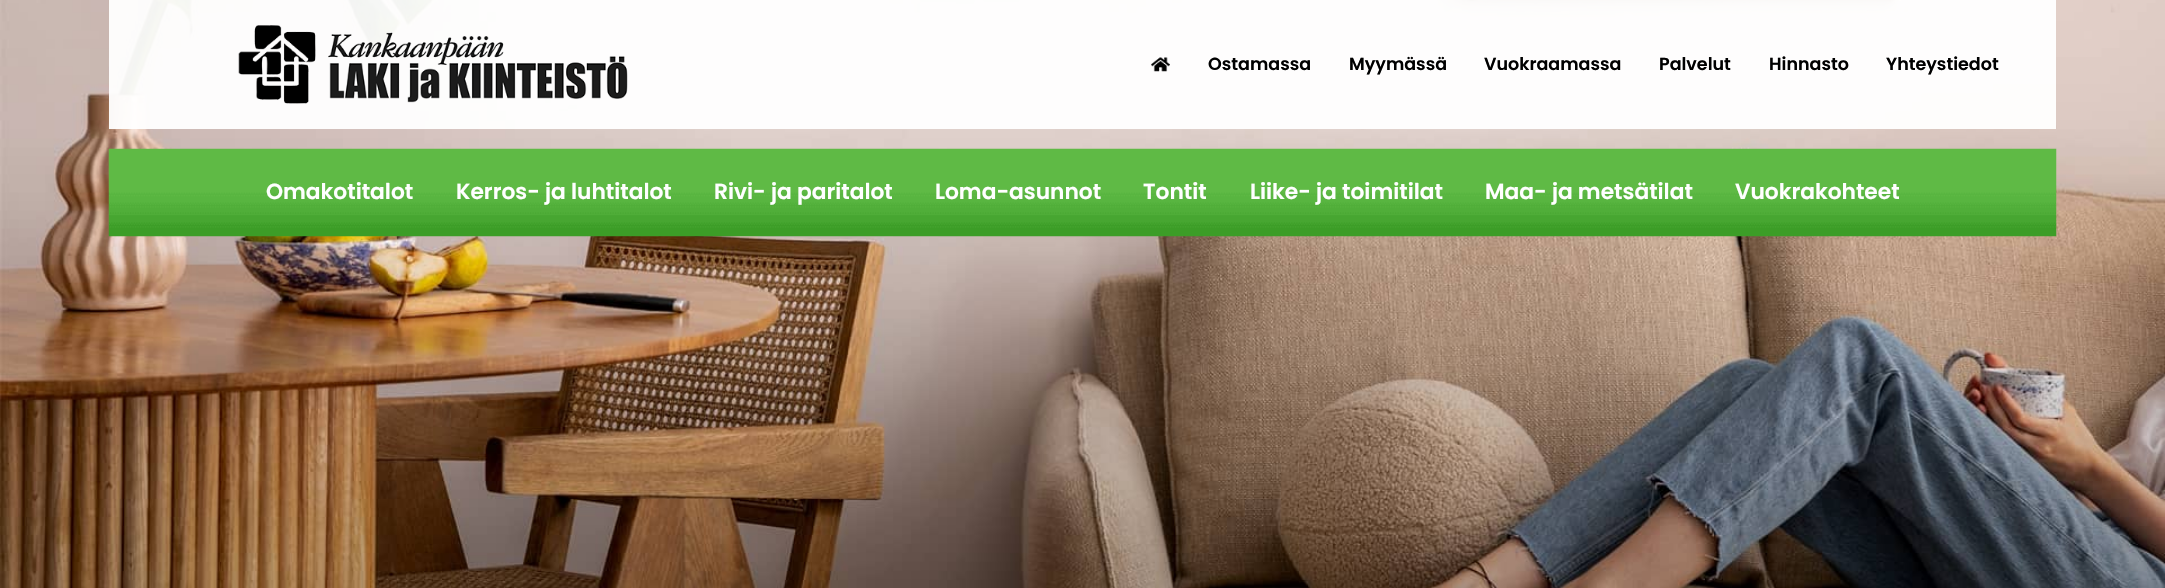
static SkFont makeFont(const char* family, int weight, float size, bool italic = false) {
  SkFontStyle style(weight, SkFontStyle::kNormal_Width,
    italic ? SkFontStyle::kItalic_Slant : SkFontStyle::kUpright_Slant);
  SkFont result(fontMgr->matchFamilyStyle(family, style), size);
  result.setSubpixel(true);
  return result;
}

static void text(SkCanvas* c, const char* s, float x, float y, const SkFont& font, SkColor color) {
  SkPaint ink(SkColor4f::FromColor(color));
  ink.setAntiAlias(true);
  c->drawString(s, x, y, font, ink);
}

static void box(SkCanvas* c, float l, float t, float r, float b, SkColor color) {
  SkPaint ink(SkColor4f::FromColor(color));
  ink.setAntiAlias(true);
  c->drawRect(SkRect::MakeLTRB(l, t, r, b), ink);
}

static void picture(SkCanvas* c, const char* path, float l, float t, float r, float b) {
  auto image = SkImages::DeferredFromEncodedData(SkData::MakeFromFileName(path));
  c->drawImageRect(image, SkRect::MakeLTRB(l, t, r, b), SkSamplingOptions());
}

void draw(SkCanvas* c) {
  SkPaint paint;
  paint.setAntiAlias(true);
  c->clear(0xffffffff);
  picture(c, "img_01.png", 0, 0, 2165, 588);
  box(c, 109, 0, 2056, 129, 0xf2ffffff);
  picture(c, "img_02.png", 238, 25, 628, 104);
  picture(c, "img_03.png", 1151, 57, 1170, 72);
  SkFont face1 = makeFont("Poppins", 600, 17.5f);
  text(c, "Ostamassa", 1208, 70, face1, 0xff000000);
  text(c, "Myymässä", 1349, 70, face1, 0xff000000);
  text(c, "Vuokraamassa", 1484, 70, face1, 0xff000000);
  text(c, "Palvelut", 1659, 70, face1, 0xff000000);
  text(c, "Hinnasto", 1769, 70, face1, 0xff000000);
  text(c, "Yhteystiedot", 1886, 70, face1, 0xff000000);
  picture(c, "img_04.png", 108, 148, 2057, 237);
  SkFont face2 = makeFont("Poppins", 600, 21.75f);
  text(c, "Omakotitalot", 266, 199, face2, 0xffffffff);
  text(c, "Kerros- ja luhtitalot", 456, 199, face2, 0xffffffff);
  text(c, "Rivi- ja paritalot", 714, 199, face2, 0xffffffff);
  text(c, "Loma-asunnot", 935, 199, face2, 0xffffffff);
  text(c, "Tontit", 1143, 199, face2, 0xffffffff);
  text(c, "Liike- ja toimitilat", 1250, 199, face2, 0xffffffff);
  text(c, "Maa- ja metsätilat", 1485, 199, face2, 0xffffffff);
  text(c, "Vuokrakohteet", 1735, 199, face2, 0xffffffff);
}
